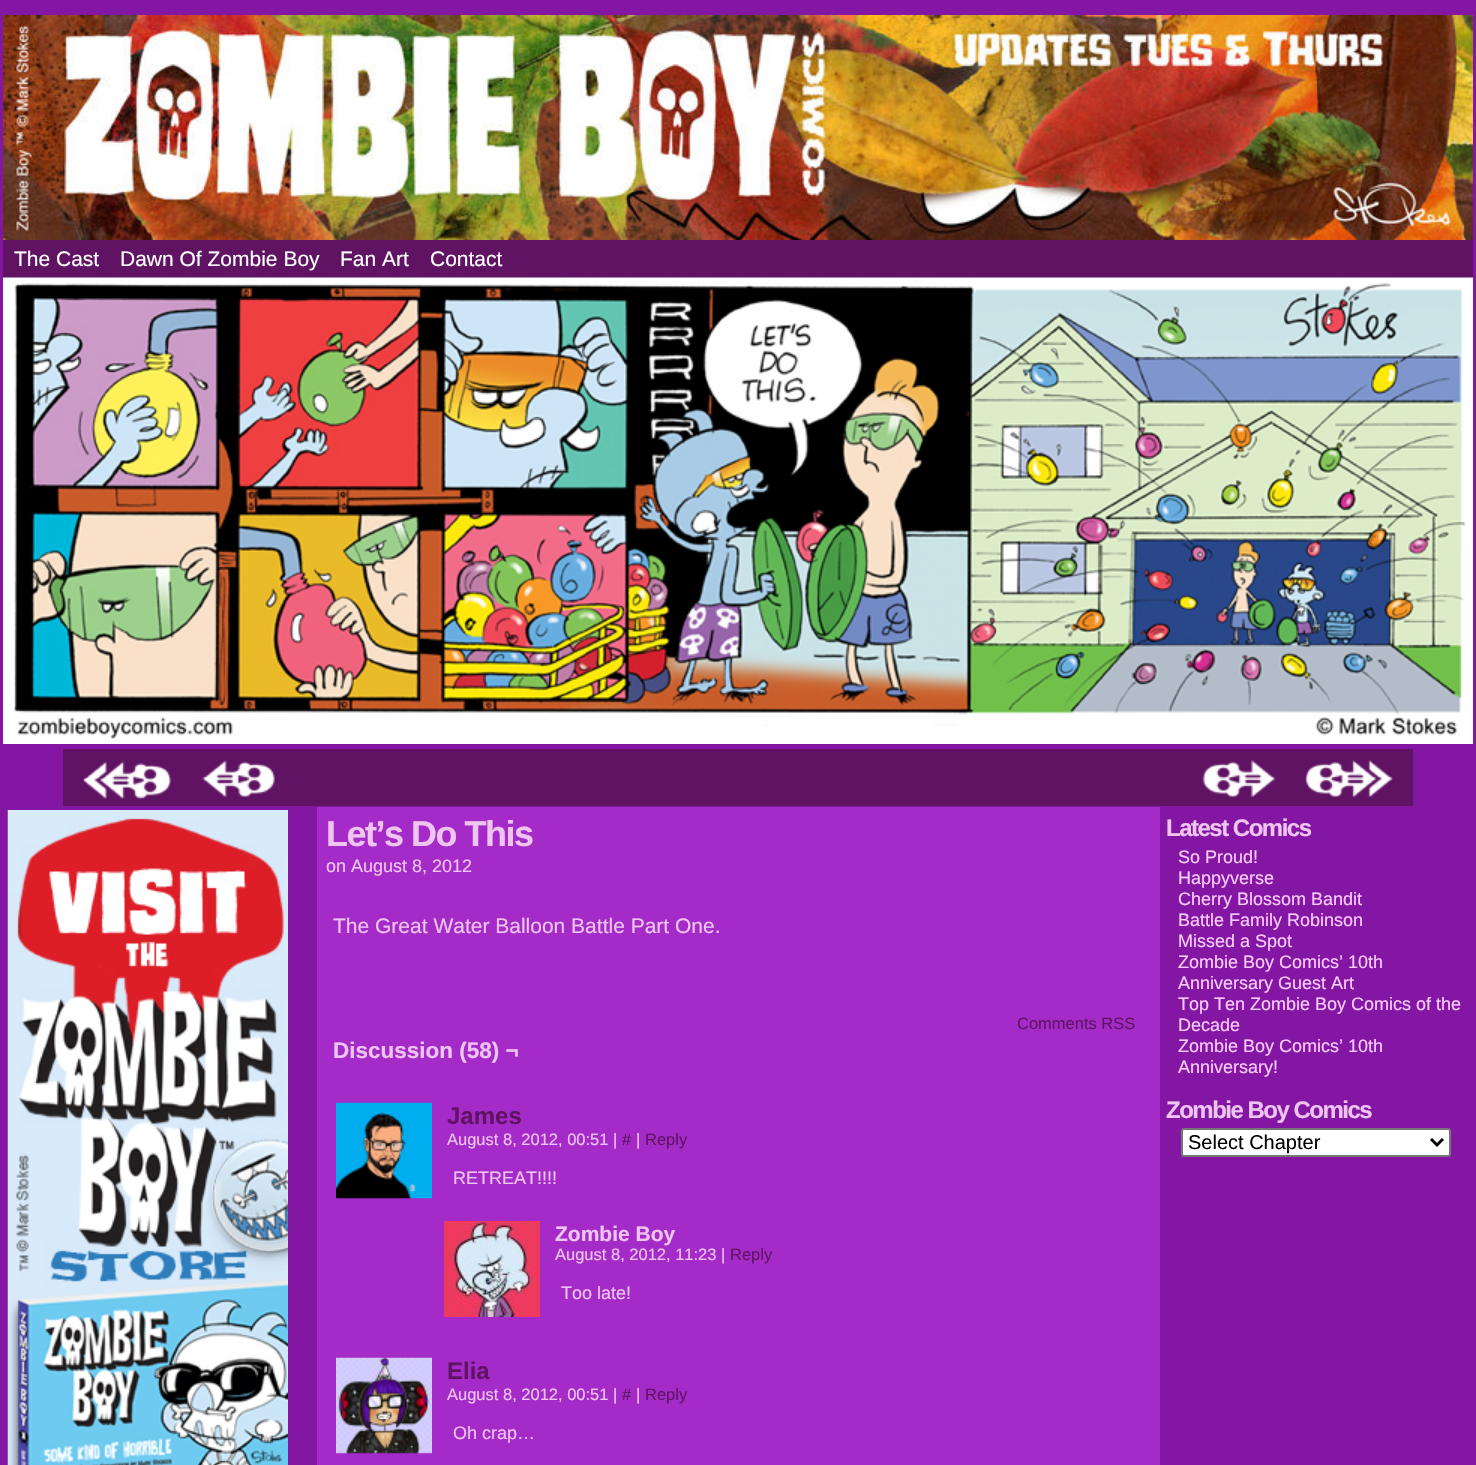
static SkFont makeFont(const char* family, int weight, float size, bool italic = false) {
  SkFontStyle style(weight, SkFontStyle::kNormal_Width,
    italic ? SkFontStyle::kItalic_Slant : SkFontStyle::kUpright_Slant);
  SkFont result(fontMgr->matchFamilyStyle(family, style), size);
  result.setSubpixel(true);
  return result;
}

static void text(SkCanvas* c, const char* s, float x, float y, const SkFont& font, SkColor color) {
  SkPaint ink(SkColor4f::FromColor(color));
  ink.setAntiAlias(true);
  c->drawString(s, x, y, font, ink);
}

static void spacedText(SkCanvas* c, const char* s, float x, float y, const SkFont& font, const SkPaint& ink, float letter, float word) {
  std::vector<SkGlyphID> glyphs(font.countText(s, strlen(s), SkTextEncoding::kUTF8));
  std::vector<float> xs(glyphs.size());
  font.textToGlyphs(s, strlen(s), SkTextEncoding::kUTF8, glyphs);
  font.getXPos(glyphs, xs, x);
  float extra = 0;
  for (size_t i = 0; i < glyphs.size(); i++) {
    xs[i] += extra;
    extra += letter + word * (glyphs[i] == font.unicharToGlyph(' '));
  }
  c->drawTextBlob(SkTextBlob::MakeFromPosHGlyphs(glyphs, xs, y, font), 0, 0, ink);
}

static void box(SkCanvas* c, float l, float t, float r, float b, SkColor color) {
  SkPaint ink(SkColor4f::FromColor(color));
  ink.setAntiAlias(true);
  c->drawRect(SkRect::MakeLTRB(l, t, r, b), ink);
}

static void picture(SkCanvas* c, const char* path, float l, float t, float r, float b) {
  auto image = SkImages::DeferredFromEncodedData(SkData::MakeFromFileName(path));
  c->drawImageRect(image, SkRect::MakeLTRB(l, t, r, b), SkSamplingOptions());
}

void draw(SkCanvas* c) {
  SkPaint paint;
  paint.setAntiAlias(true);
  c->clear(0xff8316a3);
  picture(c, "img_01.png", 3, 15, 1473, 240);
  box(c, 3, 240, 1473, 278, 0xff601363);
  SkFont face1 = makeFont("Liberation Sans", 400, 21);
  text(c, "The Cast", 14, 266, face1, 0xffffffff);
  text(c, "Dawn Of Zombie Boy", 120, 266, face1, 0xffffffff);
  text(c, "Fan Art", 340, 266, face1, 0xffffffff);
  text(c, "Contact", 430, 266, face1, 0xffffffff);
  picture(c, "img_02.png", 3, 277, 1473, 744);
  box(c, 63, 749, 1413, 806, 0xff601363);
  picture(c, "img_03.png", 83, 761, 172, 799);
  picture(c, "img_04.png", 202, 760, 275, 797);
  picture(c, "img_05.png", 1202, 760, 1276, 798);
  picture(c, "img_06.png", 1305, 760, 1393, 797);
  picture(c, "img_07.png", 7, 810, 288, 1465);
  box(c, 317, 807, 1160, 1465, 0xffa42bc7);
  SkFont face2 = makeFont("Liberation Sans", 700, 36);
  paint.setColor(0xffefc4f1);
  spacedText(c, "Let’s Do This", 326, 846, face2, paint, -1.5f, 0);
  SkFont face3 = makeFont("Liberation Sans", 400, 18);
  text(c, "on August 8, 2012", 326, 872, face3, 0xffefc4f1);
  text(c, "The Great Water Balloon Battle Part One.", 333, 933, face1, 0xffefc4f1);
  SkFont face4 = makeFont("Liberation Sans", 400, 16.5f);
  text(c, "Comments RSS", 1017, 1029, face4, 0xff601363);
  SkFont face5 = makeFont("Liberation Sans", 700, 22.5f);
  text(c, "Discussion (58) ¬", 333, 1058, face5, 0xffefc4f1);
  picture(c, "img_08.png", 336, 1102, 432, 1199);
  SkFont face6 = makeFont("Liberation Sans", 700, 24);
  text(c, "James", 447, 1124, face6, 0xff601363);
  text(c, "August 8, 2012, 00:51 |", 447, 1145, face4, 0xffefc4f1);
  text(c, "#", 622, 1145, face4, 0xff601363);
  text(c, "|", 636, 1145, face4, 0xffefc4f1);
  text(c, "Reply", 645, 1145, face4, 0xff601363);
  text(c, "RETREAT!!!!", 453, 1184, face3, 0xffefc4f1);
  picture(c, "img_09.png", 444, 1221, 540, 1317);
  SkFont face7 = makeFont("Liberation Sans", 700, 21);
  text(c, "Zombie Boy", 555, 1241, face7, 0xffefc4f1);
  text(c, "August 8, 2012, 11:23 |", 555, 1260, face4, 0xffefc4f1);
  text(c, "Reply", 730, 1260, face4, 0xff601363);
  text(c, "Too late!", 561, 1299, face3, 0xffefc4f1);
  picture(c, "img_10.png", 336, 1357, 432, 1454);
  text(c, "Elia", 447, 1379, face6, 0xff601363);
  text(c, "August 8, 2012, 00:51 |", 447, 1400, face4, 0xffefc4f1);
  text(c, "#", 622, 1400, face4, 0xff601363);
  text(c, "|", 636, 1400, face4, 0xffefc4f1);
  text(c, "Reply", 645, 1400, face4, 0xff601363);
  text(c, "Oh crap…", 453, 1439, face3, 0xffefc4f1);
  spacedText(c, "Latest Comics", 1166, 836, face6, paint, -1.5f, 0);
  text(c, "So Proud!", 1178, 863, face3, 0xfffdccff);
  text(c, "Happyverse", 1178, 884, face3, 0xfffdccff);
  text(c, "Cherry Blossom Bandit", 1178, 905, face3, 0xfffdccff);
  text(c, "Battle Family Robinson", 1178, 926, face3, 0xfffdccff);
  text(c, "Missed a Spot", 1178, 947, face3, 0xfffdccff);
  text(c, "Zombie Boy Comics’ 10th", 1178, 968, face3, 0xfffdccff);
  text(c, "Anniversary Guest Art", 1178, 989, face3, 0xfffdccff);
  text(c, "Top Ten Zombie Boy Comics of the", 1178, 1010, face3, 0xfffdccff);
  text(c, "Decade", 1178, 1031, face3, 0xfffdccff);
  text(c, "Zombie Boy Comics’ 10th", 1178, 1052, face3, 0xfffdccff);
  text(c, "Anniversary!", 1178, 1073, face3, 0xfffdccff);
  spacedText(c, "Zombie Boy Comics", 1166, 1118, face6, paint, -1.5f, 0);
  paint.setColor(0xffffffff);
  c->drawRoundRect(SkRect::MakeLTRB(1182, 1129, 1450, 1156), 2, 2, paint);
  paint.setStyle(SkPaint::kStroke_Style);
  paint.setStrokeWidth(2);
  paint.setColor(0xff767676);
  c->drawRoundRect(SkRect::MakeLTRB(1182, 1129, 1450, 1156), 2, 2, paint);
  paint.setStrokeWidth(3);
  paint.setColor(0xff000000);
  c->drawPath(SkPathBuilder().moveTo(1431, 1139).lineTo(1437, 1145).lineTo(1443, 1139).detach(), paint);
  SkFont face8 = makeFont("Liberation Sans", 400, 20);
  text(c, "Select Chapter", 1188, 1149, face8, 0xff000000);
}
